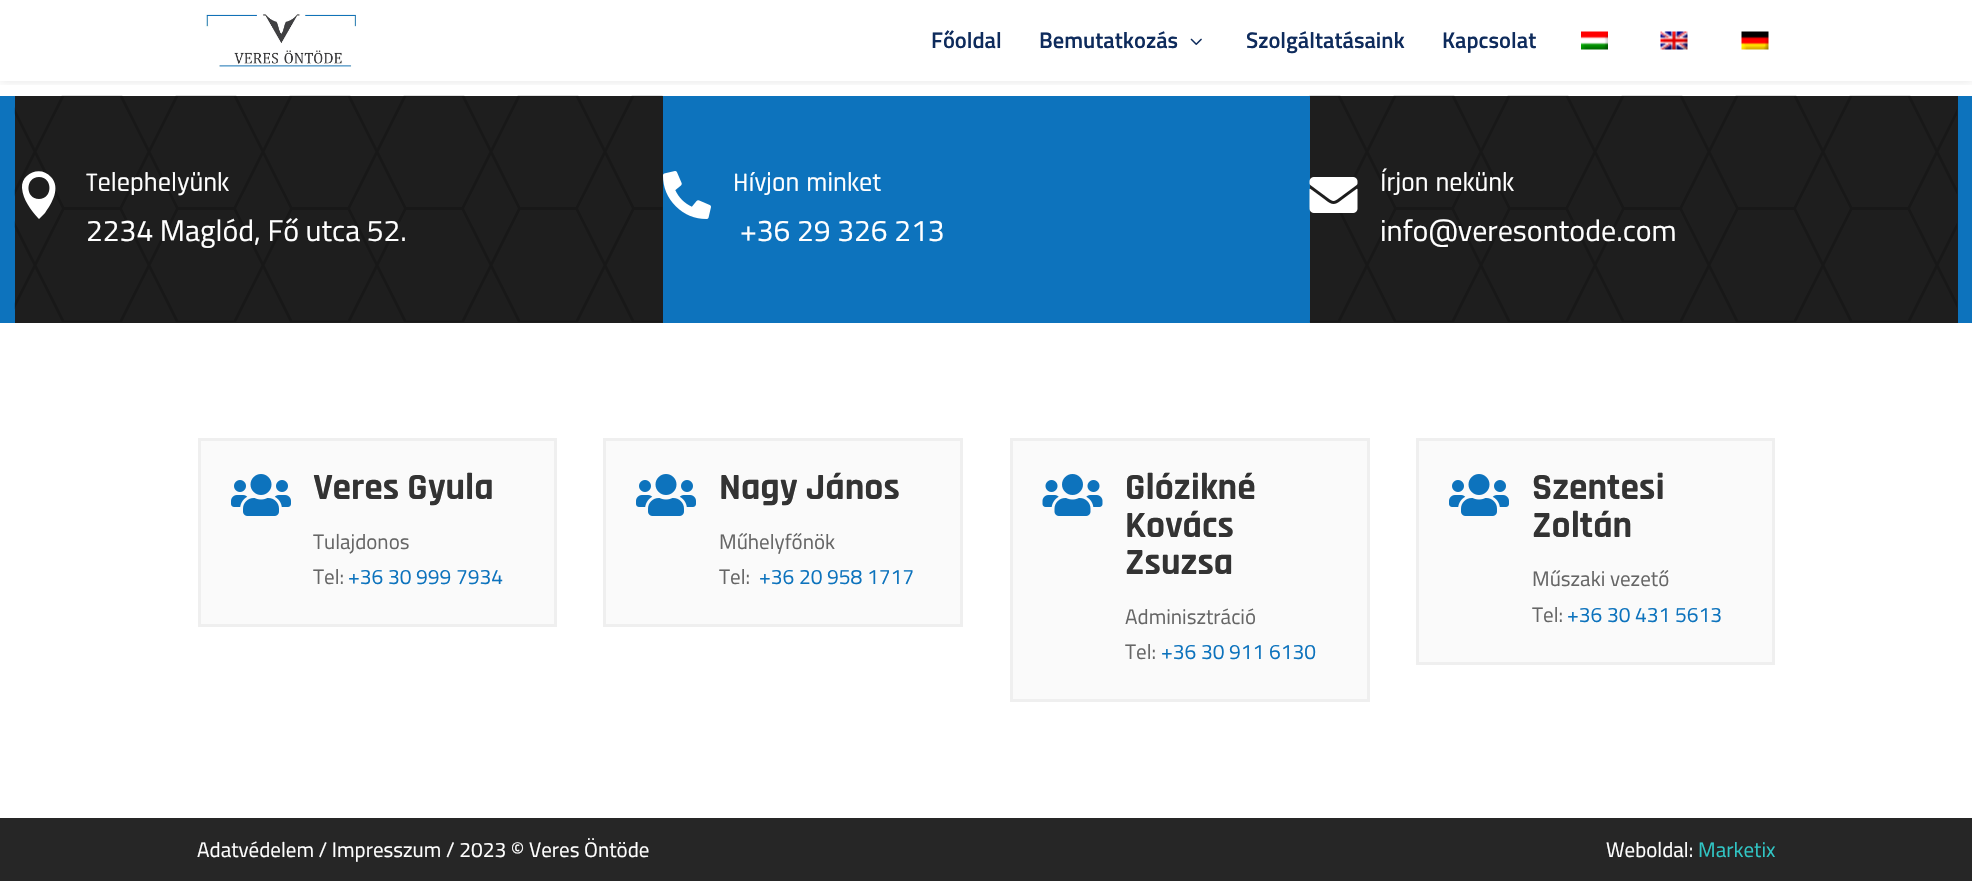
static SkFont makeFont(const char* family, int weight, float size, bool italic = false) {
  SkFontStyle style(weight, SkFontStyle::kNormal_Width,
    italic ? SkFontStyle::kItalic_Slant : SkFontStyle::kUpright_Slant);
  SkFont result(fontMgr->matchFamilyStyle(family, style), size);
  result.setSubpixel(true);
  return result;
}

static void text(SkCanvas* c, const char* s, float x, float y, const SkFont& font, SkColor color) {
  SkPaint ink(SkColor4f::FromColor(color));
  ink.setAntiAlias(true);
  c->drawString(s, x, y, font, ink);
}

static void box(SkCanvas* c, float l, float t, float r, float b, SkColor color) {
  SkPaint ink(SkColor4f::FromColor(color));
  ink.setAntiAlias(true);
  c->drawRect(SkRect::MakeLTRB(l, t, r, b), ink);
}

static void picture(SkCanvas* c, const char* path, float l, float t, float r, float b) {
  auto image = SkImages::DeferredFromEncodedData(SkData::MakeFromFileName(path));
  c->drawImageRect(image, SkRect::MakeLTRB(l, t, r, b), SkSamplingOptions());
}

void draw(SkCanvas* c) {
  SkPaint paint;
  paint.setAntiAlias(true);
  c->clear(0xffffffff);
  box(c, 1958, 96, 1972, 323, 0xff0d73bd);
  box(c, 0, 96, 15, 323, 0xff0d73bd);
  box(c, 15, 96, 663, 323, 0xff1e1e1e);
  picture(c, "img_06.png", 14, 95, 663, 322);
  box(c, 663, 96, 1310, 323, 0xff0d73bd);
  box(c, 1310, 96, 1958, 323, 0xff1e1e1e);
  picture(c, "img_08.png", 1309, 95, 1957, 322);
  c->save();
  c->clipRect(SkRect::MakeLTRB(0, 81, 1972, 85));
  paint.setColor(0x1a000000);
  paint.setMaskFilter(SkMaskFilter::MakeBlur(kNormal_SkBlurStyle, 5));
  c->drawRect(SkRect::MakeLTRB(0, 0, 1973, 81), paint);
  paint.setMaskFilter(nullptr);
  c->restore();
  picture(c, "img_01.png", 205, 14, 356, 67);
  SkFont face1 = makeFont("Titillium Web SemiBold", 600, 22.5f);
  text(c, "Főoldal", 931, 48, face1, 0xff0e2b5c);
  text(c, "Bemutatkozás", 1039, 48, face1, 0xff0e2b5c);
  picture(c, "img_02.png", 1190, 38, 1202, 45);
  text(c, "Szolgáltatásaink", 1246, 48, face1, 0xff0e2b5c);
  text(c, "Kapcsolat", 1442, 48, face1, 0xff0e2b5c);
  picture(c, "img_03.png", 1581, 31, 1608, 50);
  picture(c, "img_04.png", 1660, 31, 1688, 50);
  picture(c, "img_05.png", 1741, 31, 1769, 50);
  paint.setColor(0xffffffff);
  c->drawPath(SkPathBuilder().moveTo(38, 218).lineTo(39, 219).lineTo(45, 213).cubicTo(52, 203, 61, 188, 51, 177).cubicTo(41, 165, 21, 173, 22, 188).cubicTo(23, 200, 31, 210, 38, 218).close().moveTo(39, 177).cubicTo(53, 177, 53, 199, 39, 199).cubicTo(25, 199, 25, 177, 39, 177).close().detach(), paint);
  SkFont face2 = makeFont("Rajdhani", 500, 27);
  text(c, "Telephelyünk", 86, 191, face2, 0xffffffff);
  SkFont face3 = makeFont("Titillium Web", 400, 30);
  text(c, "2234 Maglód, Fő utca 52.", 86, 241, face3, 0xffffffff);
  picture(c, "img_07.png", 663, 171, 711, 219);
  text(c, "Hívjon minket", 733, 191, face2, 0xffffffff);
  text(c, "+36 29 326 213", 740, 241, face3, 0xffffffff);
  picture(c, "img_09.png", 1309, 177, 1358, 213);
  text(c, "Írjon nekünk", 1380, 191, face2, 0xffffffff);
  text(c, "info@veresontode.com", 1380, 241, face3, 0xffffffff);
  paint.setColor(0xfffafafa);
  c->drawRect(SkRect::MakeLTRB(199.5f, 439.5f, 555.5f, 625.5f), paint);
  paint.setStyle(SkPaint::kStroke_Style);
  paint.setStrokeWidth(3);
  paint.setColor(0xffefefef);
  c->drawRect(SkRect::MakeLTRB(199.5f, 439.5f, 555.5f, 625.5f), paint);
  picture(c, "img_10.png", 231, 474, 291, 516);
  SkFont face4 = makeFont("Rajdhani", 700, 37.5f);
  text(c, "Veres Gyula", 313, 499, face4, 0xff333333);
  SkFont face5 = makeFont("Titillium Web", 400, 21);
  text(c, "Tulajdonos", 313, 549, face5, 0xff666666);
  text(c, "Tel:", 313, 584, face5, 0xff666666);
  text(c, "+36 30 999 7934", 348, 584, face5, 0xff0d73bd);
  paint.setStyle(SkPaint::kFill_Style);
  paint.setColor(0xfffafafa);
  c->drawRect(SkRect::MakeLTRB(604.5f, 439.5f, 961.5f, 625.5f), paint);
  paint.setStyle(SkPaint::kStroke_Style);
  paint.setColor(0xffefefef);
  c->drawRect(SkRect::MakeLTRB(604.5f, 439.5f, 961.5f, 625.5f), paint);
  picture(c, "img_10.png", 636, 474, 696, 516);
  text(c, "Nagy János", 719, 499, face4, 0xff333333);
  text(c, "Műhelyfőnök", 719, 549, face5, 0xff666666);
  text(c, "Tel:", 719, 584, face5, 0xff666666);
  text(c, "+36 20 958 1717", 759, 584, face5, 0xff0d73bd);
  paint.setStyle(SkPaint::kFill_Style);
  paint.setColor(0xfffafafa);
  c->drawRect(SkRect::MakeLTRB(1011.5f, 439.5f, 1368.5f, 700.5f), paint);
  paint.setStyle(SkPaint::kStroke_Style);
  paint.setColor(0xffefefef);
  c->drawRect(SkRect::MakeLTRB(1011.5f, 439.5f, 1368.5f, 700.5f), paint);
  picture(c, "img_11.png", 1042, 474, 1103, 516);
  text(c, "Glózikné", 1125, 499, face4, 0xff333333);
  text(c, "Kovács", 1125, 537, face4, 0xff333333);
  text(c, "Zsuzsa", 1125, 574, face4, 0xff333333);
  text(c, "Adminisztráció", 1125, 624, face5, 0xff666666);
  text(c, "Tel:", 1125, 659, face5, 0xff666666);
  text(c, "+36 30 911 6130", 1161, 659, face5, 0xff0d73bd);
  paint.setStyle(SkPaint::kFill_Style);
  paint.setColor(0xfffafafa);
  c->drawRect(SkRect::MakeLTRB(1417.5f, 439.5f, 1773.5f, 663.5f), paint);
  paint.setStyle(SkPaint::kStroke_Style);
  paint.setColor(0xffefefef);
  c->drawRect(SkRect::MakeLTRB(1417.5f, 439.5f, 1773.5f, 663.5f), paint);
  picture(c, "img_10.png", 1449, 474, 1509, 516);
  text(c, "Szentesi", 1532, 499, face4, 0xff333333);
  text(c, "Zoltán", 1532, 537, face4, 0xff333333);
  text(c, "Műszaki vezető", 1532, 586, face5, 0xff666666);
  text(c, "Tel:", 1532, 622, face5, 0xff666666);
  text(c, "+36 30 431 5613", 1567, 622, face5, 0xff0d73bd);
  box(c, 0, 818, 1972, 881, 0xff262626);
  text(c, "Adatvédelem / Impresszum / 2023 © Veres Öntöde", 197, 857, face5, 0xffffffff);
  text(c, "Weboldal:", 1606, 857, face5, 0xffffffff);
  text(c, "Marketix", 1698, 857, face5, 0xff31c6c5);
}
